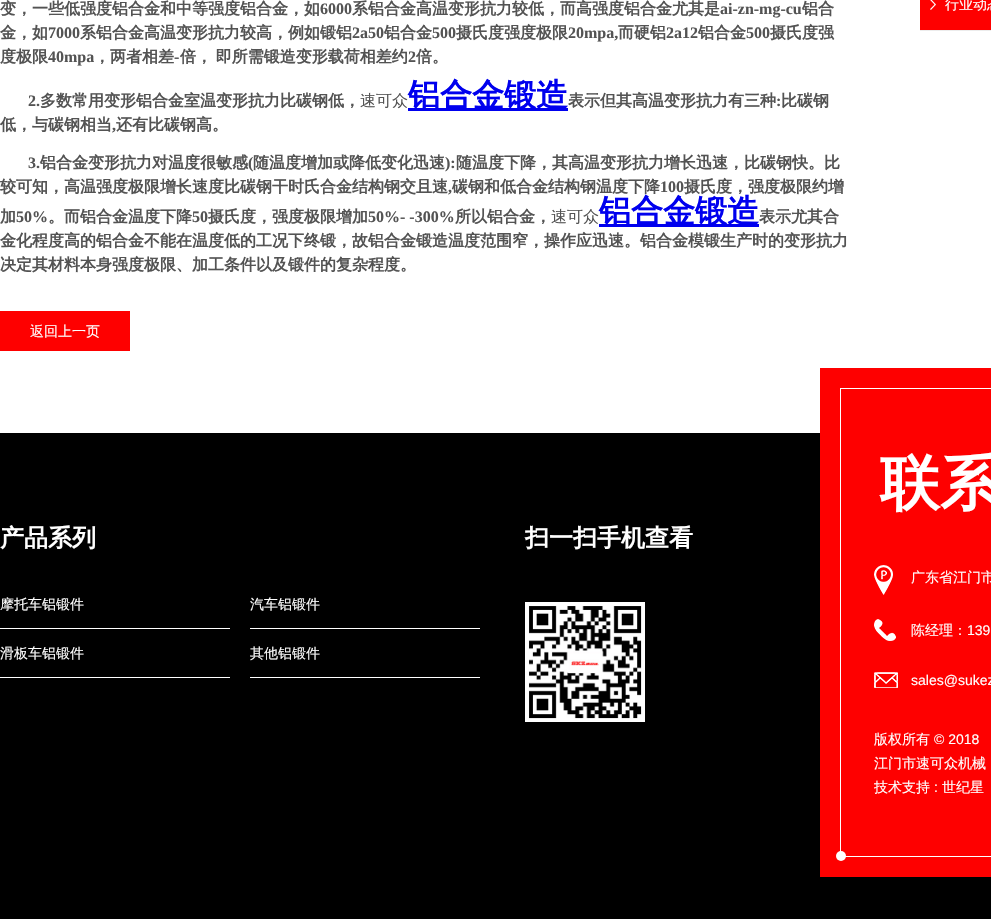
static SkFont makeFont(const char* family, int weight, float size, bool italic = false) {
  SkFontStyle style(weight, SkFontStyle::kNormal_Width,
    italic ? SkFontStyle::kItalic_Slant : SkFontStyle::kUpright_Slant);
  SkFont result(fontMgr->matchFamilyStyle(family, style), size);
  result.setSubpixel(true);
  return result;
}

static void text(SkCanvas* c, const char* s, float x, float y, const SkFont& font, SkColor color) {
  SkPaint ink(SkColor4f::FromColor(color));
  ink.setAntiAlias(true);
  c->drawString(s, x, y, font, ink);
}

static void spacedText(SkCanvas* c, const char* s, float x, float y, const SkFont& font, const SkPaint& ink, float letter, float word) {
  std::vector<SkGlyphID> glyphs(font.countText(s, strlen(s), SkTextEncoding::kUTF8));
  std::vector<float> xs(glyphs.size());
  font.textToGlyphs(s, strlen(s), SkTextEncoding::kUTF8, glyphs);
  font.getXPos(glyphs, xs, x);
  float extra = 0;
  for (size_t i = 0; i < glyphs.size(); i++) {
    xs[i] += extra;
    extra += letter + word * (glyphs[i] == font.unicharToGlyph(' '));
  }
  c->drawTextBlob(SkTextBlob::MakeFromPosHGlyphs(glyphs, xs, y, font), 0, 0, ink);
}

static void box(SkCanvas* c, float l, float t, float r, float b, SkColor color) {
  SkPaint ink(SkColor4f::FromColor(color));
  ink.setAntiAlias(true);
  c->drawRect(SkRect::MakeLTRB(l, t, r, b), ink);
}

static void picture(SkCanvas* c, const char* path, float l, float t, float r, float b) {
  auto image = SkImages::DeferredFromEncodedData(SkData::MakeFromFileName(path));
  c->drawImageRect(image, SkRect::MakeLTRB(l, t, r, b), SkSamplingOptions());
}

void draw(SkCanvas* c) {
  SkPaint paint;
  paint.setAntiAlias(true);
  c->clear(0xffffffff);
  SkFont face1 = makeFont("WenQuanYi Zen Hei", 700, 16);
  text(c, "变，一些低强度铝合金和中等强度铝合金，如", 0, 14, face1, 0xff535353);
  SkFont face2 = makeFont("Liberation Serif", 700, 16);
  text(c, "6000", 320, 14, face2, 0xff535353);
  text(c, "系铝合金高温变形抗力较低，而高强度铝合金尤其是", 352, 14, face1, 0xff535353);
  text(c, "ai-zn-mg-cu", 720, 14, face2, 0xff535353);
  text(c, "铝合", 802, 14, face1, 0xff535353);
  text(c, "金，如", 0, 38, face1, 0xff535353);
  text(c, "7000", 48, 38, face2, 0xff535353);
  text(c, "系铝合金高温变形抗力较高，例如锻铝", 80, 38, face1, 0xff535353);
  text(c, "2a50", 352, 38, face2, 0xff535353);
  text(c, "铝合金", 384, 38, face1, 0xff535353);
  text(c, "500", 432, 38, face2, 0xff535353);
  text(c, "摄氏度强度极限", 456, 38, face1, 0xff535353);
  text(c, "20mpa,", 568, 38, face2, 0xff535353);
  text(c, "而硬铝", 618, 38, face1, 0xff535353);
  text(c, "2a12", 666, 38, face2, 0xff535353);
  text(c, "铝合金", 698, 38, face1, 0xff535353);
  text(c, "500", 746, 38, face2, 0xff535353);
  text(c, "摄氏度强", 770, 38, face1, 0xff535353);
  text(c, "度极限", 0, 62, face1, 0xff535353);
  text(c, "40mpa", 48, 62, face2, 0xff535353);
  text(c, "，两者相差", 94, 62, face1, 0xff535353);
  text(c, "-", 174, 62, face2, 0xff535353);
  paint.setColor(0xff535353);
  spacedText(c, "倍， 即所需锻造变形载荷相差约", 180, 62, face1, paint, 0, -1);
  text(c, "2", 408, 62, face2, 0xff535353);
  text(c, "倍。", 416, 62, face1, 0xff535353);
  text(c, "2.", 28, 106, face2, 0xff535353);
  text(c, "多数常用变形铝合金室温变形抗力比碳钢低，", 40, 106, face1, 0xff535353);
  SkFont face3 = makeFont("WenQuanYi Zen Hei", 500, 16);
  text(c, "速可众", 360, 106, face3, 0xff535353);
  box(c, 408, 108, 568, 111, 0xff0000ee);
  SkFont face4 = makeFont("WenQuanYi Zen Hei", 700, 32);
  text(c, "铝合金锻造", 408, 106, face4, 0xff0000ee);
  text(c, "表示但其高温变形抗力有三种", 568, 106, face1, 0xff535353);
  text(c, ":", 776, 106, face2, 0xff535353);
  text(c, "比碳钢", 781, 106, face1, 0xff535353);
  text(c, "低，与碳钢相当", 0, 130, face1, 0xff535353);
  text(c, ",", 112, 130, face2, 0xff535353);
  text(c, "还有比碳钢高。", 116, 130, face1, 0xff535353);
  text(c, "3.", 28, 168, face2, 0xff535353);
  text(c, "铝合金变形抗力对温度很敏感", 40, 168, face1, 0xff535353);
  text(c, "(", 248, 168, face2, 0xff535353);
  text(c, "随温度增加或降低变化迅速", 253, 168, face1, 0xff535353);
  text(c, "):", 445, 168, face2, 0xff535353);
  text(c, "随温度下降，其高温变形抗力增长迅速，比碳钢快。比", 456, 168, face1, 0xff535353);
  text(c, "较可知，高温强度极限增长速度比碳钢干时氏合金结构钢交且速", 0, 192, face1, 0xff535353);
  text(c, ",", 448, 192, face2, 0xff535353);
  text(c, "碳钢和低合金结构钢温度下降", 452, 192, face1, 0xff535353);
  text(c, "100", 660, 192, face2, 0xff535353);
  text(c, "摄氏度，强度极限约增", 684, 192, face1, 0xff535353);
  text(c, "加", 0, 222, face1, 0xff535353);
  text(c, "50%", 16, 222, face2, 0xff535353);
  text(c, "。而铝合金温度下降", 48, 222, face1, 0xff535353);
  text(c, "50", 192, 222, face2, 0xff535353);
  text(c, "摄氏度，强度极限增加", 208, 222, face1, 0xff535353);
  text(c, "50%- -300%", 368, 222, face2, 0xff535353);
  text(c, "所以铝合金，", 455, 222, face1, 0xff535353);
  text(c, "速可众", 551, 222, face3, 0xff535353);
  box(c, 599, 224, 759, 227, 0xff0000ee);
  text(c, "铝合金锻造", 599, 222, face4, 0xff0000ee);
  text(c, "表示尤其合", 759, 222, face1, 0xff535353);
  text(c, "金化程度高的铝合金不能在温度低的工况下终锻，故铝合金锻造温度范围窄，操作应迅速。铝合金模锻生产时的变形抗力", 0, 246, face1, 0xff535353);
  text(c, "决定其材料本身强度极限、加工条件以及锻件的复杂程度。", 0, 270, face1, 0xff535353);
  box(c, 0, 311, 130, 351, 0xfffe0000);
  SkFont face5 = makeFont("WenQuanYi Zen Hei", 500, 14);
  text(c, "返回上一页", 30, 336, face5, 0xffffffff);
  box(c, 920, 30, 991, 31, 0xffececec);
  box(c, 920, 0, 991, 30, 0xfffe0000);
  picture(c, "img_01.png", 930, 0, 936, 10);
  text(c, "行业动态", 945, 9, face5, 0xffffffff);
  box(c, 0, 433, 991, 919, 0xff000000);
  SkFont face6 = makeFont("WenQuanYi Zen Hei", 700, 24);
  text(c, "产品系列", 0, 546, face6, 0xffffffff);
  box(c, 0, 628, 230, 629, 0xffffffff);
  text(c, "摩托车铝锻件", 0, 609, face5, 0xffffffff);
  box(c, 250, 628, 480, 629, 0xffffffff);
  text(c, "汽车铝锻件", 250, 609, face5, 0xffffffff);
  box(c, 0, 677, 230, 678, 0xffffffff);
  text(c, "滑板车铝锻件", 0, 658, face5, 0xffffffff);
  box(c, 250, 677, 480, 678, 0xffffffff);
  text(c, "其他铝锻件", 250, 658, face5, 0xffffffff);
  text(c, "扫一扫手机查看", 525, 546, face6, 0xffffffff);
  picture(c, "img_02.png", 525, 602, 645, 722);
  box(c, 820, 368, 991, 877, 0xfffe0000);
  paint.setStyle(SkPaint::kStroke_Style);
  paint.setStrokeWidth(1);
  paint.setColor(0xffffffff);
  c->drawRect(SkRect::MakeLTRB(840.5f, 388.5f, 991.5f, 856.5f), paint);
  SkFont face7 = makeFont("WenQuanYi Zen Hei", 700, 60);
  text(c, "联系", 880, 504, face7, 0xffffffff);
  picture(c, "img_03.png", 874, 565, 893, 595);
  text(c, "广东省江门市", 911, 582, face5, 0xffffffff);
  picture(c, "img_04.png", 874, 619, 896, 641);
  text(c, "陈经理：", 911, 635, face5, 0xffffffff);
  SkFont face8 = makeFont("Liberation Sans", 400, 14);
  text(c, "139", 967, 635, face8, 0xffffffff);
  picture(c, "img_05.png", 874, 672, 898, 688);
  text(c, "sales@sukez", 911, 685, face8, 0xffffffff);
  text(c, "版权所有", 874, 744, face5, 0xffffffff);
  text(c, "© 2018", 934, 744, face8, 0xffffffff);
  text(c, "江门市速可众机械", 874, 768, face5, 0xffffffff);
  text(c, "技术支持", 874, 792, face5, 0xffffffff);
  text(c, ":", 934, 792, face8, 0xffffffff);
  text(c, "世纪星", 942, 792, face5, 0xffffffff);
  paint.setStyle(SkPaint::kFill_Style);
  c->drawCircle(841, 856, 5, paint);
}
